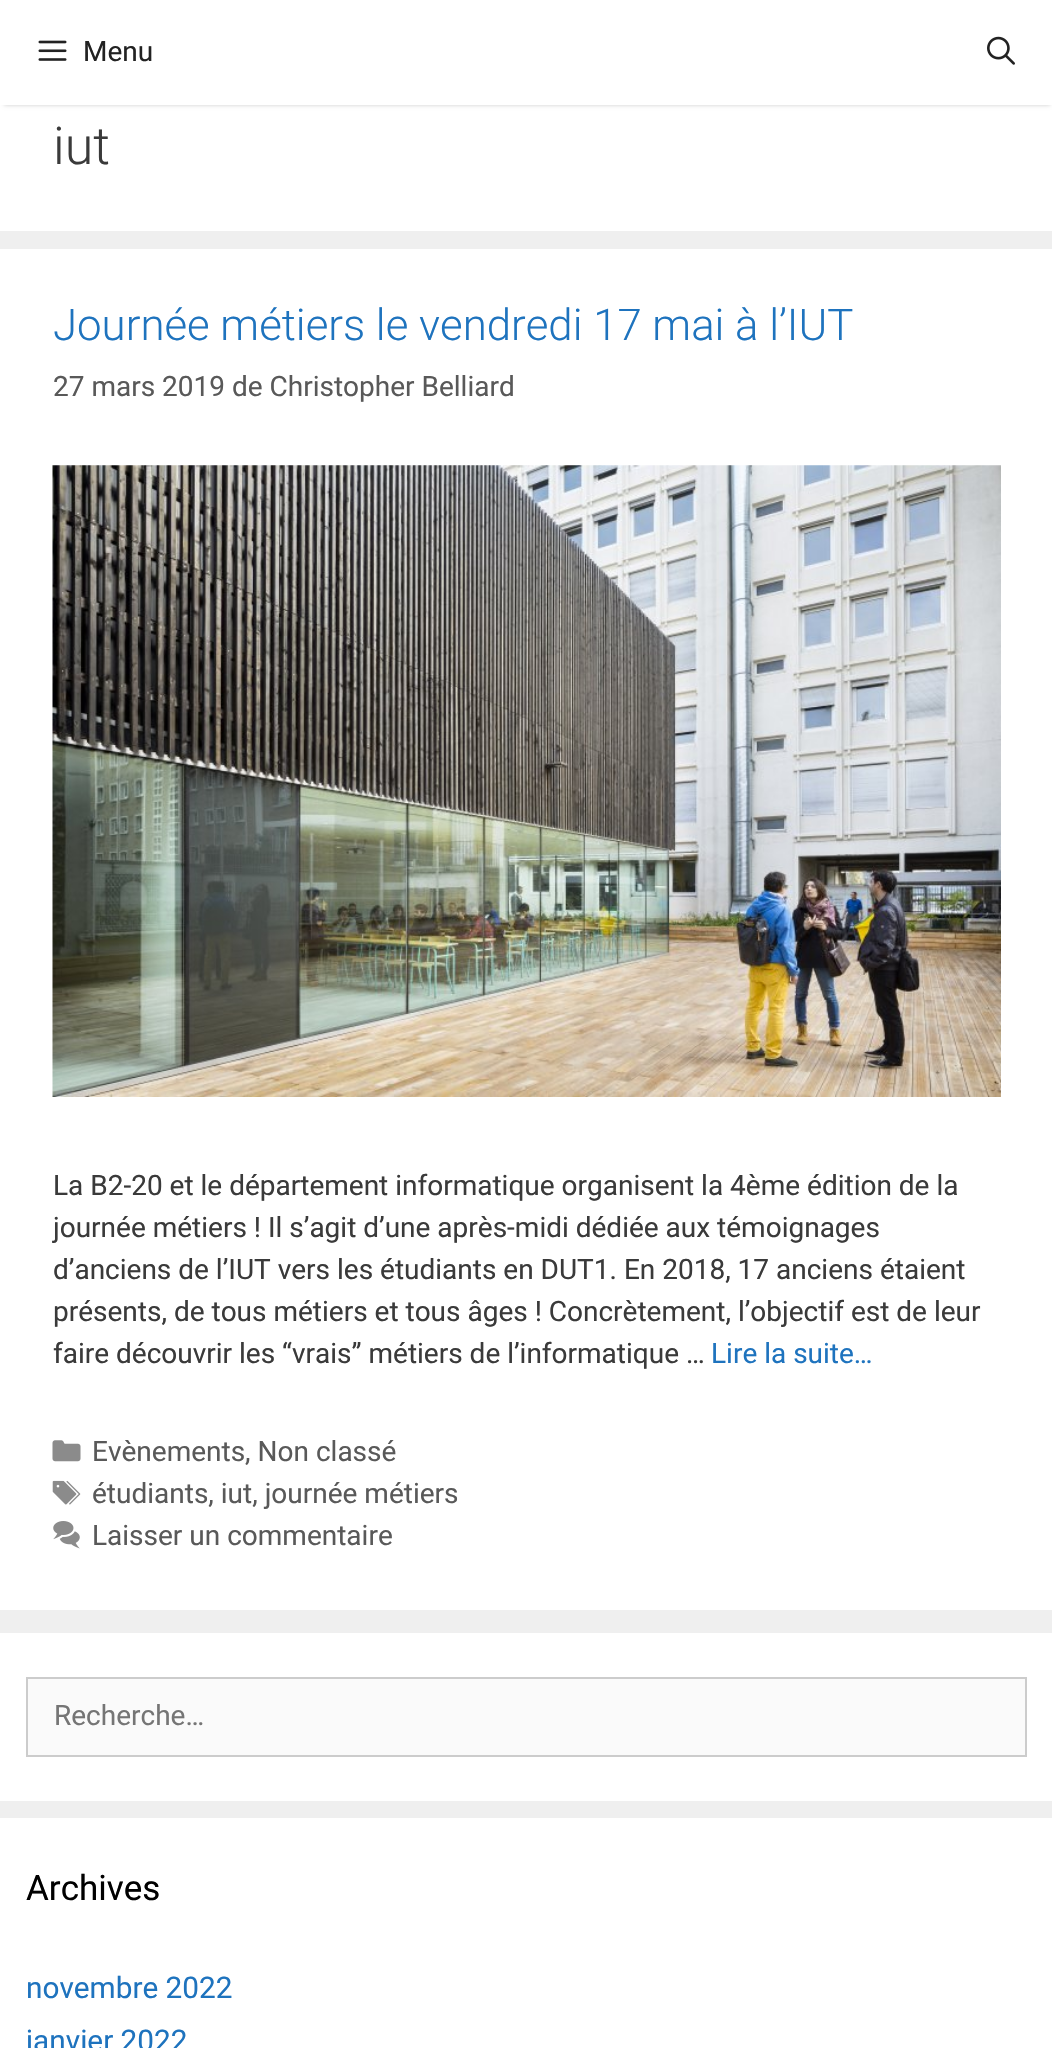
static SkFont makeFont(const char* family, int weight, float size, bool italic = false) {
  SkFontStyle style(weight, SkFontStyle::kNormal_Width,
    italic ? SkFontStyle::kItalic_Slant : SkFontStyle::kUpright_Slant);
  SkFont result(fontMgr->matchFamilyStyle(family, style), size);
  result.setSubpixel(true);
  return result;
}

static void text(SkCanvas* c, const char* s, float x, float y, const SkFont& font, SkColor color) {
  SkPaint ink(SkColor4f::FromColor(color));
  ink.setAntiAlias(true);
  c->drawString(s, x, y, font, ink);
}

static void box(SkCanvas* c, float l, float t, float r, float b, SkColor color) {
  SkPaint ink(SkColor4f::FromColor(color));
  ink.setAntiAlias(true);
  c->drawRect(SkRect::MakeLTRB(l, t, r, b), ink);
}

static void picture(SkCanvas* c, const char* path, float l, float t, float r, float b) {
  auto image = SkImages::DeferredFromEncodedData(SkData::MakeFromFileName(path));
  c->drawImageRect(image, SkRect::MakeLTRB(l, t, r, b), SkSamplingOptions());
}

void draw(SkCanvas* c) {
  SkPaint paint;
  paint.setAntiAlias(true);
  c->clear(0xffefefef);
  box(c, 0, 105, 1052, 231, 0xffffffff);
  paint.setColor(0x33000000);
  paint.setMaskFilter(SkMaskFilter::MakeBlur(kNormal_SkBlurStyle, 2));
  c->drawRect(SkRect::MakeLTRB(4, 7, 1050, 105), paint);
  paint.setMaskFilter(nullptr);
  box(c, 0, 0, 1052, 105, 0xffffffff);
  picture(c, "img_01.png", 38, 40, 67, 61);
  SkFont face1 = makeFont("Roboto", 400, 28);
  text(c, "Menu", 83, 61, face1, 0xff222222);
  picture(c, "img_02.png", 987, 36, 1015, 65);
  SkFont face2 = makeFont("Roboto", 300, 52);
  text(c, "iut", 53, 164, face2, 0xff3a3a3a);
  box(c, 0, 249, 1052, 1610, 0xffffffff);
  SkFont face3 = makeFont("Roboto", 300, 43.75f);
  text(c, "Journée métiers le vendredi 17 mai à l’IUT", 53, 340, face3, 0xff1e73be);
  text(c, "27 mars 2019 de Christopher Belliard", 53, 396, face1, 0xff595959);
  picture(c, "img_03.png", 52, 465, 1001, 1097);
  text(c, "La B2-20 et le département informatique organisent la 4ème édition de la", 53, 1195, face1, 0xff3a3a3a);
  text(c, "journée métiers ! Il s’agit d’une après-midi dédiée aux témoignages", 53, 1237, face1, 0xff3a3a3a);
  text(c, "d’anciens de l’IUT vers les étudiants en DUT1. En 2018, 17 anciens étaient", 53, 1279, face1, 0xff3a3a3a);
  text(c, "présents, de tous métiers et tous âges ! Concrètement, l’objectif est de leur", 53, 1321, face1, 0xff3a3a3a);
  text(c, "faire découvrir les “vrais” métiers de l’informatique …", 53, 1363, face1, 0xff3a3a3a);
  text(c, "Lire la suite…", 711, 1363, face1, 0xff1e73be);
  picture(c, "img_04.png", 52, 1440, 81, 1462);
  text(c, "Evènements, Non classé", 92, 1461, face1, 0xff595959);
  picture(c, "img_05.png", 52, 1480, 81, 1505);
  text(c, "étudiants, iut, journée métiers", 92, 1503, face1, 0xff595959);
  picture(c, "img_06.png", 53, 1521, 80, 1549);
  text(c, "Laisser un commentaire", 92, 1545, face1, 0xff595959);
  box(c, 0, 1633, 1052, 1801, 0xffffffff);
  paint.setColor(0xfffafafa);
  c->drawRect(SkRect::MakeLTRB(27, 1678, 1026, 1756), paint);
  paint.setStyle(SkPaint::kStroke_Style);
  paint.setStrokeWidth(2);
  paint.setColor(0xffcccccc);
  c->drawRect(SkRect::MakeLTRB(27, 1678, 1026, 1756), paint);
  text(c, "Recherche…", 54, 1725, face1, 0xff757575);
  box(c, 0, 1818, 1052, 2048, 0xffffffff);
  SkFont face4 = makeFont("Roboto", 400, 35);
  text(c, "Archives", 26, 1900, face4, 0xff000000);
  SkFont face5 = makeFont("Roboto", 400, 29.75f);
  text(c, "novembre 2022", 26, 1998, face5, 0xff1e73be);
  text(c, "janvier 2022", 26, 2051, face5, 0xff1e73be);
}
